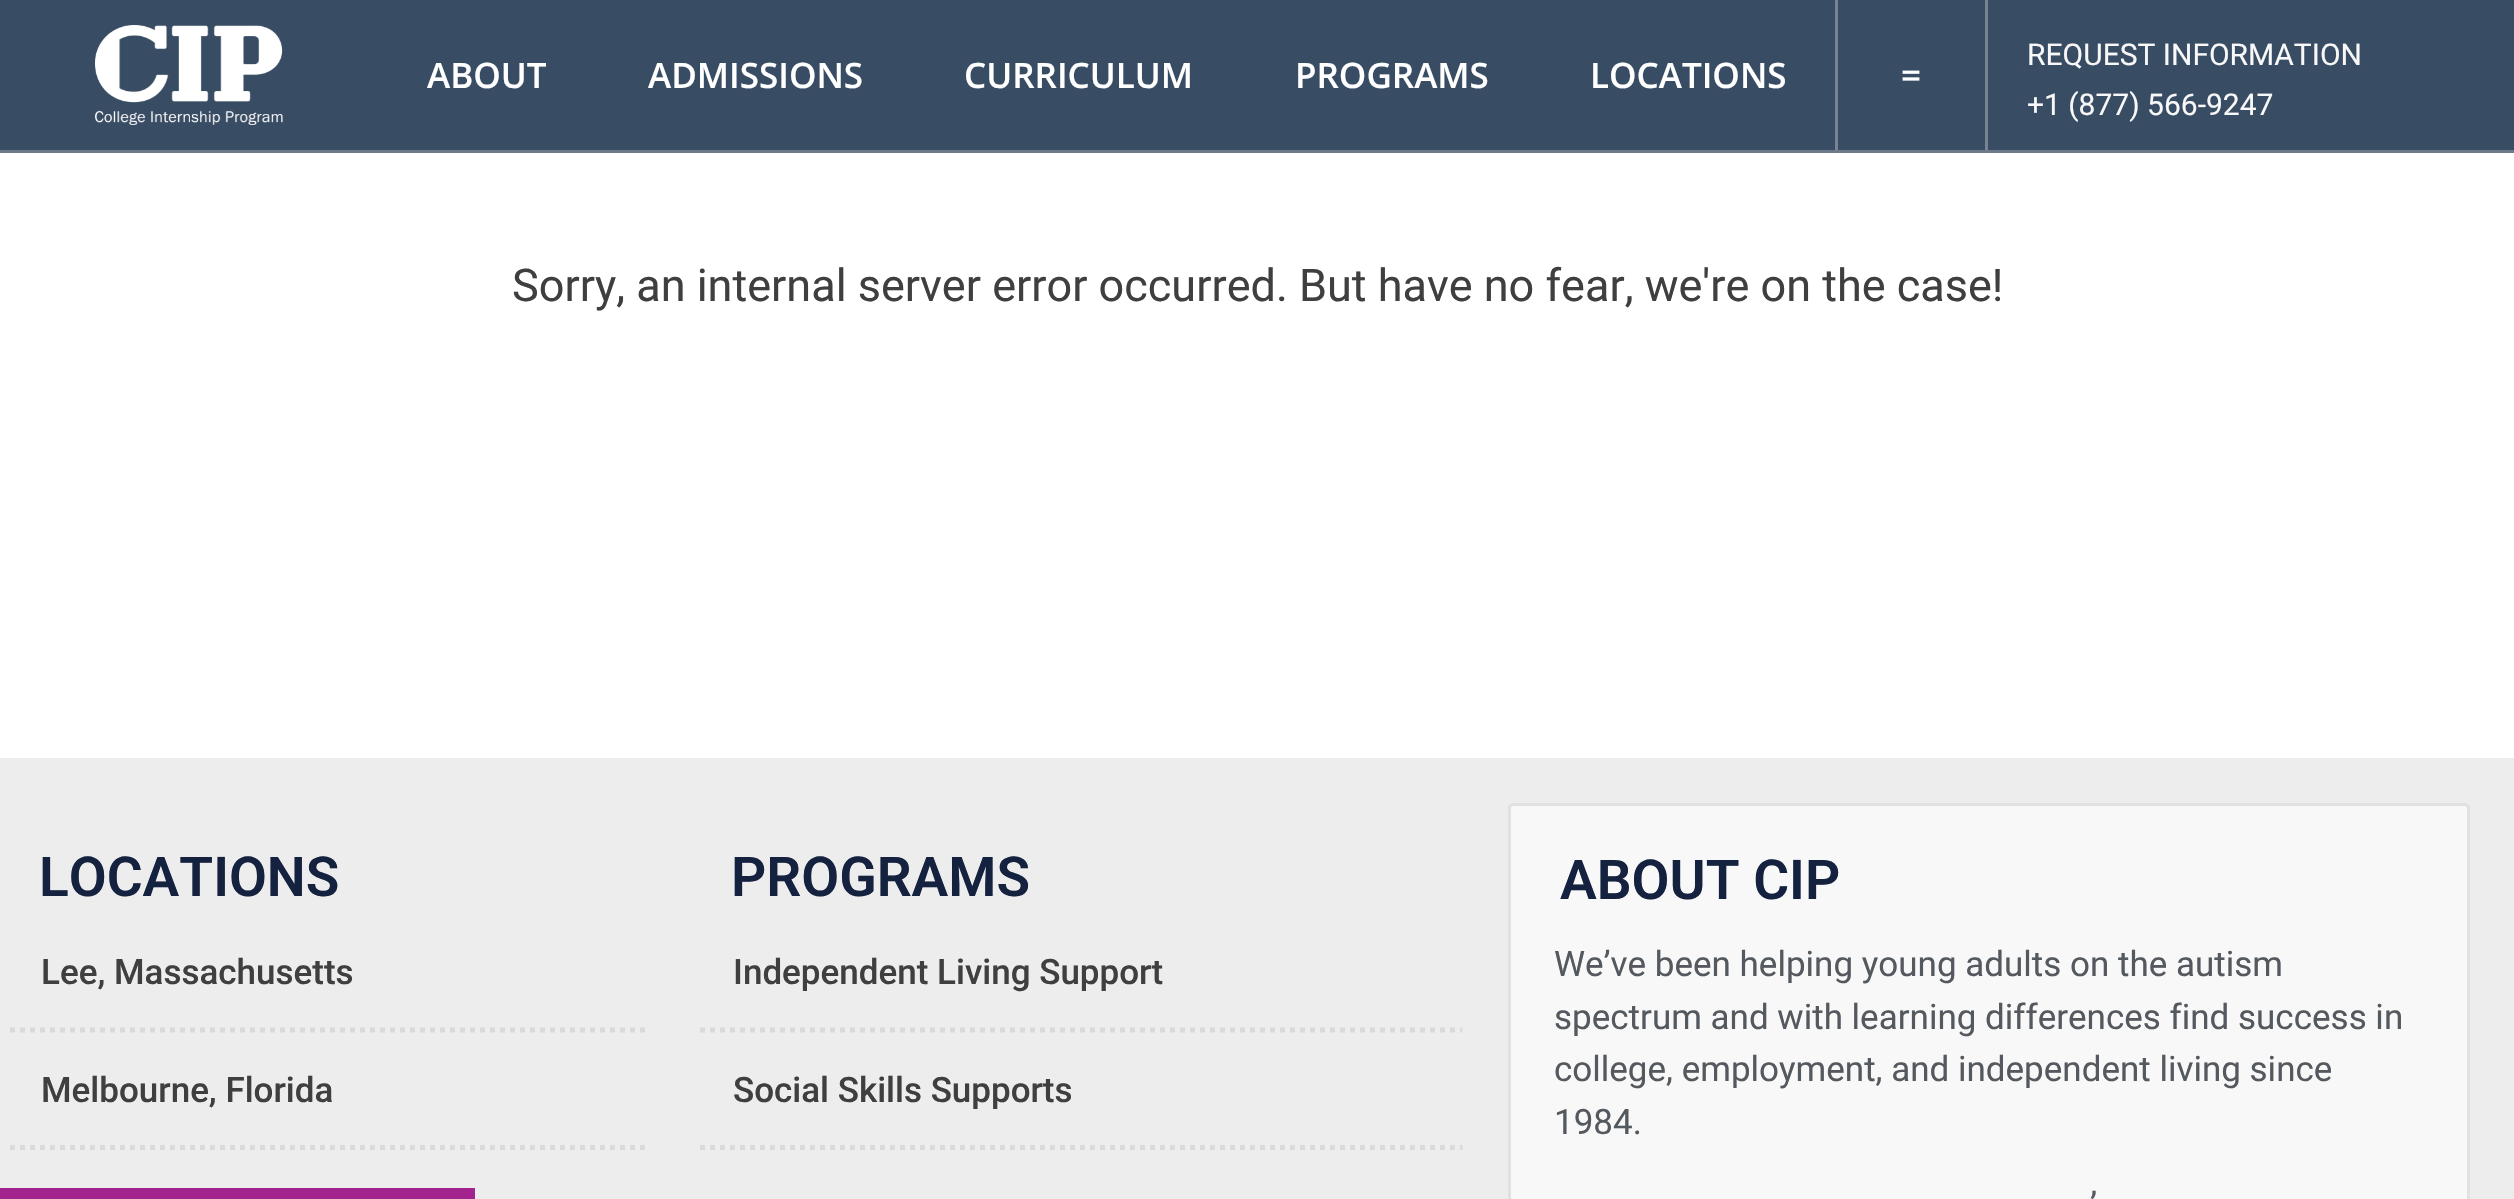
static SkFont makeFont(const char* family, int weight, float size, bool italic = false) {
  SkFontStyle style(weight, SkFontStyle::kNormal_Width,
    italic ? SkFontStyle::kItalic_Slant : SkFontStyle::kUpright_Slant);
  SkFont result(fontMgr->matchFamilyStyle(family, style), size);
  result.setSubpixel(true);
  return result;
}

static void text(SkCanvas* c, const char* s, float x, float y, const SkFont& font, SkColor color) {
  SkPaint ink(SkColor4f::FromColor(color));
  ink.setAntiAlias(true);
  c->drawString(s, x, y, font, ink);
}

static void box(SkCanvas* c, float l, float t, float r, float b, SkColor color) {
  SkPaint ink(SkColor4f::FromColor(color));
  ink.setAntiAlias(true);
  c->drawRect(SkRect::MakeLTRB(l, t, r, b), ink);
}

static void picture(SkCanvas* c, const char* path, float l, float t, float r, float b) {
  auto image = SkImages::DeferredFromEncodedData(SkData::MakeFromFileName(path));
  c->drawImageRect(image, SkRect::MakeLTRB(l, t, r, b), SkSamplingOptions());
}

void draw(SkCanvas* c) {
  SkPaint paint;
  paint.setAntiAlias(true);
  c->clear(0xffffffff);
  box(c, 0, 0, 2514, 153, 0xcf0a2240);
  box(c, 0, 150, 2514, 153, 0x54d7d7d9);
  picture(c, "img_01.png", 95, 25, 283, 125);
  SkFont face1 = makeFont("Open Sans", 600, 35);
  text(c, "ABOUT", 427, 88, face1, 0xffffffff);
  text(c, "ADMISSIONS", 648, 88, face1, 0xffffffff);
  text(c, "CURRICULUM", 964, 88, face1, 0xffffffff);
  text(c, "PROGRAMS", 1295, 88, face1, 0xffffffff);
  text(c, "LOCATIONS", 1590, 88, face1, 0xffffffff);
  box(c, 1985, 0, 1988, 150, 0xff788493);
  box(c, 1835, 0, 1838, 150, 0x66d7d7d9);
  text(c, "=", 1901, 88, face1, 0xffffffff);
  SkFont face2 = makeFont("Roboto", 400, 30);
  text(c, "REQUEST INFORMATION", 2027, 65, face2, 0xfff8f8f8);
  text(c, "+1 (877) 566-9247", 2027, 115, face2, 0xfff8f8f8);
  SkFont face3 = makeFont("Roboto", 400, 45);
  text(c, "Sorry, an internal server error occurred. But have no fear, we're on the case!", 512, 301, face3, 0xff3f3f3f);
  box(c, 0, 758, 2514, 1199, 0xffededed);
  SkFont face4 = makeFont("Roboto", 600, 55);
  text(c, "LOCATIONS", 39, 896, face4, 0xff14223f);
  SkFont face5 = makeFont("Roboto", 500, 35);
  text(c, "Lee, Massachusetts", 41, 984, face5, 0xff3f3f3f);
  paint.setStyle(SkPaint::kStroke_Style);
  paint.setStrokeWidth(5);
  paint.setColor(0xffdadada);
  paint.setPathEffect(SkDashPathEffect::Make({{5, 5}}, 0));
  c->drawPath(SkPathBuilder().moveTo(10, 1030).lineTo(647.5f, 1030).detach(), paint);
  paint.setPathEffect(nullptr);
  text(c, "Melbourne, Florida", 41, 1102, face5, 0xff3f3f3f);
  paint.setPathEffect(SkDashPathEffect::Make({{5, 5}}, 0));
  c->drawPath(SkPathBuilder().moveTo(10, 1147.5f).lineTo(647.5f, 1147.5f).detach(), paint);
  paint.setPathEffect(nullptr);
  text(c, "PROGRAMS", 731, 896, face4, 0xff14223f);
  text(c, "Independent Living Support", 733, 984, face5, 0xff3f3f3f);
  paint.setPathEffect(SkDashPathEffect::Make({{5, 5}}, 0));
  c->drawPath(SkPathBuilder().moveTo(700, 1030).lineTo(1462.5f, 1030).detach(), paint);
  paint.setPathEffect(nullptr);
  text(c, "Social Skills Supports", 733, 1102, face5, 0xff3f3f3f);
  paint.setPathEffect(SkDashPathEffect::Make({{5, 5}}, 0));
  c->drawPath(SkPathBuilder().moveTo(700, 1147.5f).lineTo(1462.5f, 1147.5f).detach(), paint);
  paint.setPathEffect(nullptr);
  paint.setStyle(SkPaint::kFill_Style);
  paint.setColor(0xfff8f8f8);
  c->drawRoundRect(SkRect::MakeLTRB(1509.5f, 804.5f, 2468.5f, 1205.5f), 3.5f, 3.5f, paint);
  paint.setStyle(SkPaint::kStroke_Style);
  paint.setStrokeWidth(3);
  paint.setColor(0xffe1e1e1);
  c->drawRoundRect(SkRect::MakeLTRB(1509.5f, 804.5f, 2468.5f, 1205.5f), 3.5f, 3.5f, paint);
  text(c, "ABOUT CIP", 1560, 899, face4, 0xff14223f);
  SkFont face6 = makeFont("Roboto", 400, 35);
  text(c, "We’ve been helping young adults on the autism", 1554, 976, face6, 0xff54595f);
  text(c, "spectrum and with learning differences find success in", 1554, 1029, face6, 0xff54595f);
  text(c, "college, employment, and independent living since", 1554, 1081, face6, 0xff54595f);
  text(c, "1984.", 1554, 1134, face6, 0xff54595f);
  text(c, "’", 2090, 1217, face6, 0xff54595f);
  box(c, 0, 1188, 475, 1199, 0xffa2238d);
}
